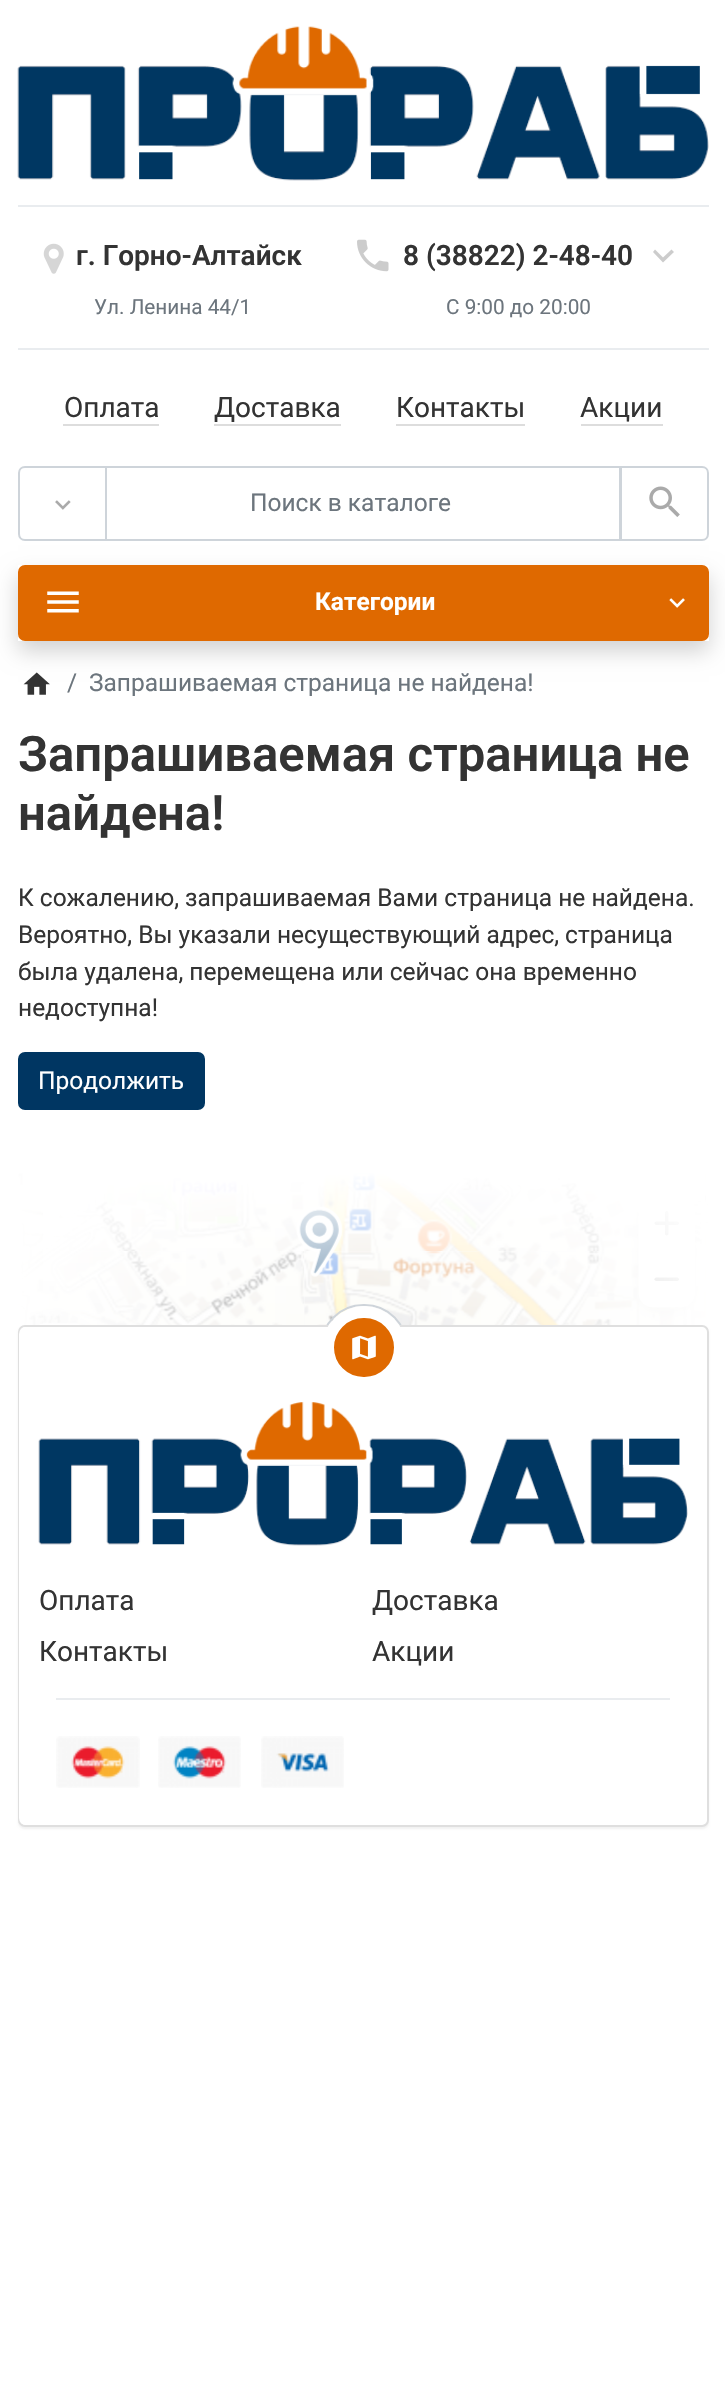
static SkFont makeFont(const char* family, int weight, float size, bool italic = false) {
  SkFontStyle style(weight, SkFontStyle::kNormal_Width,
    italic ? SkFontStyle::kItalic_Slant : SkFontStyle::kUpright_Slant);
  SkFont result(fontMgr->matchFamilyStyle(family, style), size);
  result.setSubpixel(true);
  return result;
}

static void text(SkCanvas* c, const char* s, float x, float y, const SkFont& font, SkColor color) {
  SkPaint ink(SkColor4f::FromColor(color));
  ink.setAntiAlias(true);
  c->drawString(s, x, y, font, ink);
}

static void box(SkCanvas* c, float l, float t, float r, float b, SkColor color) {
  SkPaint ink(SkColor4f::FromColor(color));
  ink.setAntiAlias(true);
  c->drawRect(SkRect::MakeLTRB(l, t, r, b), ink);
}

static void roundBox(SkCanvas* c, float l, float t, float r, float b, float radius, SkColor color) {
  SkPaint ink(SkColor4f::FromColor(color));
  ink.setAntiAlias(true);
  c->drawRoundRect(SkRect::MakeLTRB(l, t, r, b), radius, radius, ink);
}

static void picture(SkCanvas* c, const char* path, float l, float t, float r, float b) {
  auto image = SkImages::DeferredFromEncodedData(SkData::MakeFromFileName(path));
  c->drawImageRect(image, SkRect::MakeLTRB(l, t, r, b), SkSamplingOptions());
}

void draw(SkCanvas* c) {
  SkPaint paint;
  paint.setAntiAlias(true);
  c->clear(0xffffffff);
  picture(c, "img_01.png", 17, 26, 709, 181);
  box(c, 18, 205, 709, 207, 0xffe9ecef);
  picture(c, "img_02.png", 43, 243, 64, 274);
  SkFont face1 = makeFont("Roboto", 600, 28);
  text(c, "г. Горно-Алтайск", 76, 265, face1, 0xff333333);
  SkFont face2 = makeFont("Roboto", 400, 20.75f);
  text(c, "Ул. Ленина 44/1", 94, 314, face2, 0xff6c757d);
  picture(c, "img_03.png", 357, 239, 389, 272);
  text(c, "8 (38822) 2-48-40", 403, 265, face1, 0xff333333);
  paint.setColor(0xffcccccc);
  c->drawPath(SkPathBuilder().moveTo(655, 249.5f).lineTo(663, 257.5f).lineTo(671.5f, 249.5f).lineTo(674, 252).lineTo(663, 262.5f).lineTo(653, 252).close().detach(), paint);
  text(c, "C 9:00 до 20:00", 446, 314, face2, 0xff6c757d);
  box(c, 18, 348, 709, 350, 0xffe9ecef);
  SkFont face3 = makeFont("Roboto", 400, 28);
  text(c, "Оплата", 64, 417, face3, 0xff333333);
  box(c, 63, 424, 159, 426, 0xffdddddd);
  text(c, "Доставка", 214, 417, face3, 0xff333333);
  box(c, 214, 424, 341, 426, 0xffdddddd);
  text(c, "Контакты", 396, 417, face3, 0xff333333);
  box(c, 396, 424, 525, 426, 0xffdddddd);
  text(c, "Акции", 580, 417, face3, 0xff333333);
  box(c, 581, 424, 663, 426, 0xffdddddd);
  paint.setStyle(SkPaint::kStroke_Style);
  paint.setStrokeWidth(2);
  paint.setColor(0xffced4da);
  c->drawRect(SkRect::MakeLTRB(106, 467, 620, 540), paint);
  paint.setStyle(SkPaint::kFill_Style);
  paint.setColor(0xffffffff);
  c->drawPath(SkPathBuilder().moveTo(25, 467).lineTo(106, 467).lineTo(106, 540).lineTo(25, 540).cubicTo(21.5f, 540, 19, 537.5f, 19, 534).lineTo(19, 473).cubicTo(19, 469.5f, 21.5f, 467, 25, 467).close().detach(), paint);
  paint.setStyle(SkPaint::kStroke_Style);
  paint.setColor(0xffced4da);
  c->drawPath(SkPathBuilder().moveTo(25, 467).lineTo(106, 467).lineTo(106, 540).lineTo(25, 540).cubicTo(21.5f, 540, 19, 537.5f, 19, 534).lineTo(19, 473).cubicTo(19, 469.5f, 21.5f, 467, 25, 467).close().detach(), paint);
  picture(c, "img_04.png", 55, 500, 71, 510);
  SkFont face4 = makeFont("Roboto", 400, 24.5f);
  text(c, "Поиск в каталоге", 250, 511, face4, 0xff6c757d);
  paint.setStyle(SkPaint::kFill_Style);
  paint.setColor(0xffffffff);
  c->drawPath(SkPathBuilder().moveTo(621, 467).lineTo(702, 467).cubicTo(705.5f, 467, 708, 469.5f, 708, 473).lineTo(708, 534).cubicTo(708, 537.5f, 705.5f, 540, 702, 540).lineTo(621, 540).close().detach(), paint);
  paint.setStyle(SkPaint::kStroke_Style);
  paint.setColor(0xffced4da);
  c->drawPath(SkPathBuilder().moveTo(621, 467).lineTo(702, 467).cubicTo(705.5f, 467, 708, 469.5f, 708, 473).lineTo(708, 534).cubicTo(708, 537.5f, 705.5f, 540, 702, 540).lineTo(621, 540).close().detach(), paint);
  picture(c, "img_05.png", 649, 486, 680, 517);
  c->save();
  c->clipPath(SkPathBuilder(SkPathFillType::kEvenOdd).moveTo(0, 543).lineTo(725, 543).lineTo(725, 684).lineTo(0, 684).close().moveTo(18, 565).lineTo(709, 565).lineTo(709, 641).lineTo(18, 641).close().detach(), true);
  paint.setStyle(SkPaint::kFill_Style);
  paint.setColor(0x2e000000);
  paint.setMaskFilter(SkMaskFilter::MakeBlur(kNormal_SkBlurStyle, 10.5f));
  c->drawRect(SkRect::MakeLTRB(18, 576, 709, 651), paint);
  paint.setMaskFilter(nullptr);
  c->restore();
  paint.setColor(0xffdf6900);
  c->drawRoundRect(SkRect::MakeLTRB(19, 566, 708, 640), 6, 6, paint);
  paint.setStyle(SkPaint::kStroke_Style);
  c->drawRoundRect(SkRect::MakeLTRB(19, 566, 708, 640), 6, 6, paint);
  picture(c, "img_06.png", 47, 591, 79, 613);
  SkFont face5 = makeFont("Roboto", 700, 24.5f);
  text(c, "Категории", 315, 610, face5, 0xffffffff);
  picture(c, "img_07.png", 669, 598, 685, 608);
  picture(c, "img_08.png", 23, 672, 50, 695);
  text(c, "/", 67, 691, face4, 0xff6c757d);
  text(c, "Запрашиваемая страница не найдена!", 89, 691, face4, 0xff6c757d);
  SkFont face6 = makeFont("Roboto", 600, 49);
  text(c, "Запрашиваемая страница не", 18, 771, face6, 0xff333333);
  text(c, "найдена!", 18, 830, face6, 0xff333333);
  text(c, "К сожалению, запрашиваемая Вами страница не найдена.", 18, 906, face4, 0xff333333);
  text(c, "Вероятно, Вы указали несуществующий адрес, страница", 18, 943, face4, 0xff333333);
  text(c, "была удалена, перемещена или сейчас она временно", 18, 980, face4, 0xff333333);
  text(c, "недоступна!", 18, 1016, face4, 0xff333333);
  paint.setStyle(SkPaint::kFill_Style);
  paint.setColor(0xff003662);
  c->drawRoundRect(SkRect::MakeLTRB(19, 1053, 204, 1109), 6, 6, paint);
  paint.setStyle(SkPaint::kStroke_Style);
  c->drawRoundRect(SkRect::MakeLTRB(19, 1053, 204, 1109), 6, 6, paint);
  text(c, "Продолжить", 38, 1089, face4, 0xffffffff);
  picture(c, "img_09.png", 17, 1173, 709, 1392);
  paint.setStyle(SkPaint::kFill_Style);
  {
    const SkColor colors[] = {0xffffffff, 0x00ffffff, 0xffffffff};
    const float stops[] = {0, 0.5f, 1};
    const SkPoint ends[] = {{9, 1281}, {718, 1281}};
    paint.setShader(SkGradientShader::MakeLinear(ends, colors, stops, 3, SkTileMode::kClamp));
    paint.setAlpha(255);
  }
  c->drawRect(SkRect::MakeLTRB(17, 1173, 709, 1392), paint);
  {
    const SkColor colors[] = {0xffffffff, 0x00ffffff};
    const float stops[] = {0.04f, 1};
    const SkPoint ends[] = {{363, 1162}, {363, 1400}};
    paint.setShader(SkGradientShader::MakeLinear(ends, colors, stops, 2, SkTileMode::kClamp));
    paint.setAlpha(255);
  }
  c->drawRect(SkRect::MakeLTRB(43, 1173, 705, 1391), paint);
  paint.setStyle(SkPaint::kStroke_Style);
  paint.setShader(nullptr);
  paint.setColor(0xffced4da);
  c->drawRoundRect(SkRect::MakeLTRB(321, 1305, 407, 1390), 42.5f, 42.5f, paint);
  paint.setStyle(SkPaint::kFill_Style);
  paint.setColor(0x0d000000);
  paint.setMaskFilter(SkMaskFilter::MakeBlur(kNormal_SkBlurStyle, 1));
  c->drawRoundRect(SkRect::MakeLTRB(18, 1327, 709, 1829), 7, 7, paint);
  paint.setMaskFilter(nullptr);
  paint.setColor(0xffffffff);
  c->drawRoundRect(SkRect::MakeLTRB(19, 1326, 708, 1826), 6, 6, paint);
  paint.setStyle(SkPaint::kStroke_Style);
  paint.setColor(0xffdfdfdf);
  c->drawRoundRect(SkRect::MakeLTRB(19, 1326, 708, 1826), 6, 6, paint);
  roundBox(c, 19, 1327, 707, 1825, 7, 0xffffffff);
  paint.setStyle(SkPaint::kFill_Style);
  paint.setColor(0xffffffff);
  c->drawCircle(364, 1348, 42, paint);
  paint.setColor(0xffdf6900);
  c->drawRoundRect(SkRect::MakeLTRB(335, 1319, 393, 1376), 28.5f, 28.5f, paint);
  paint.setStyle(SkPaint::kStroke_Style);
  c->drawRoundRect(SkRect::MakeLTRB(335, 1319, 393, 1376), 28.5f, 28.5f, paint);
  picture(c, "img_10.png", 352, 1335, 376, 1360);
  picture(c, "img_11.png", 38, 1402, 688, 1546);
  text(c, "Оплата", 39, 1610, face3, 0xff333333);
  text(c, "Доставка", 372, 1610, face3, 0xff333333);
  text(c, "Контакты", 39, 1661, face3, 0xff333333);
  text(c, "Акции", 372, 1661, face3, 0xff333333);
  box(c, 56, 1698, 670, 1700, 0xffe9ecef);
  picture(c, "img_12.png", 56, 1736, 140, 1788);
  picture(c, "img_13.png", 158, 1736, 241, 1788);
  picture(c, "img_14.png", 261, 1736, 344, 1788);
}
